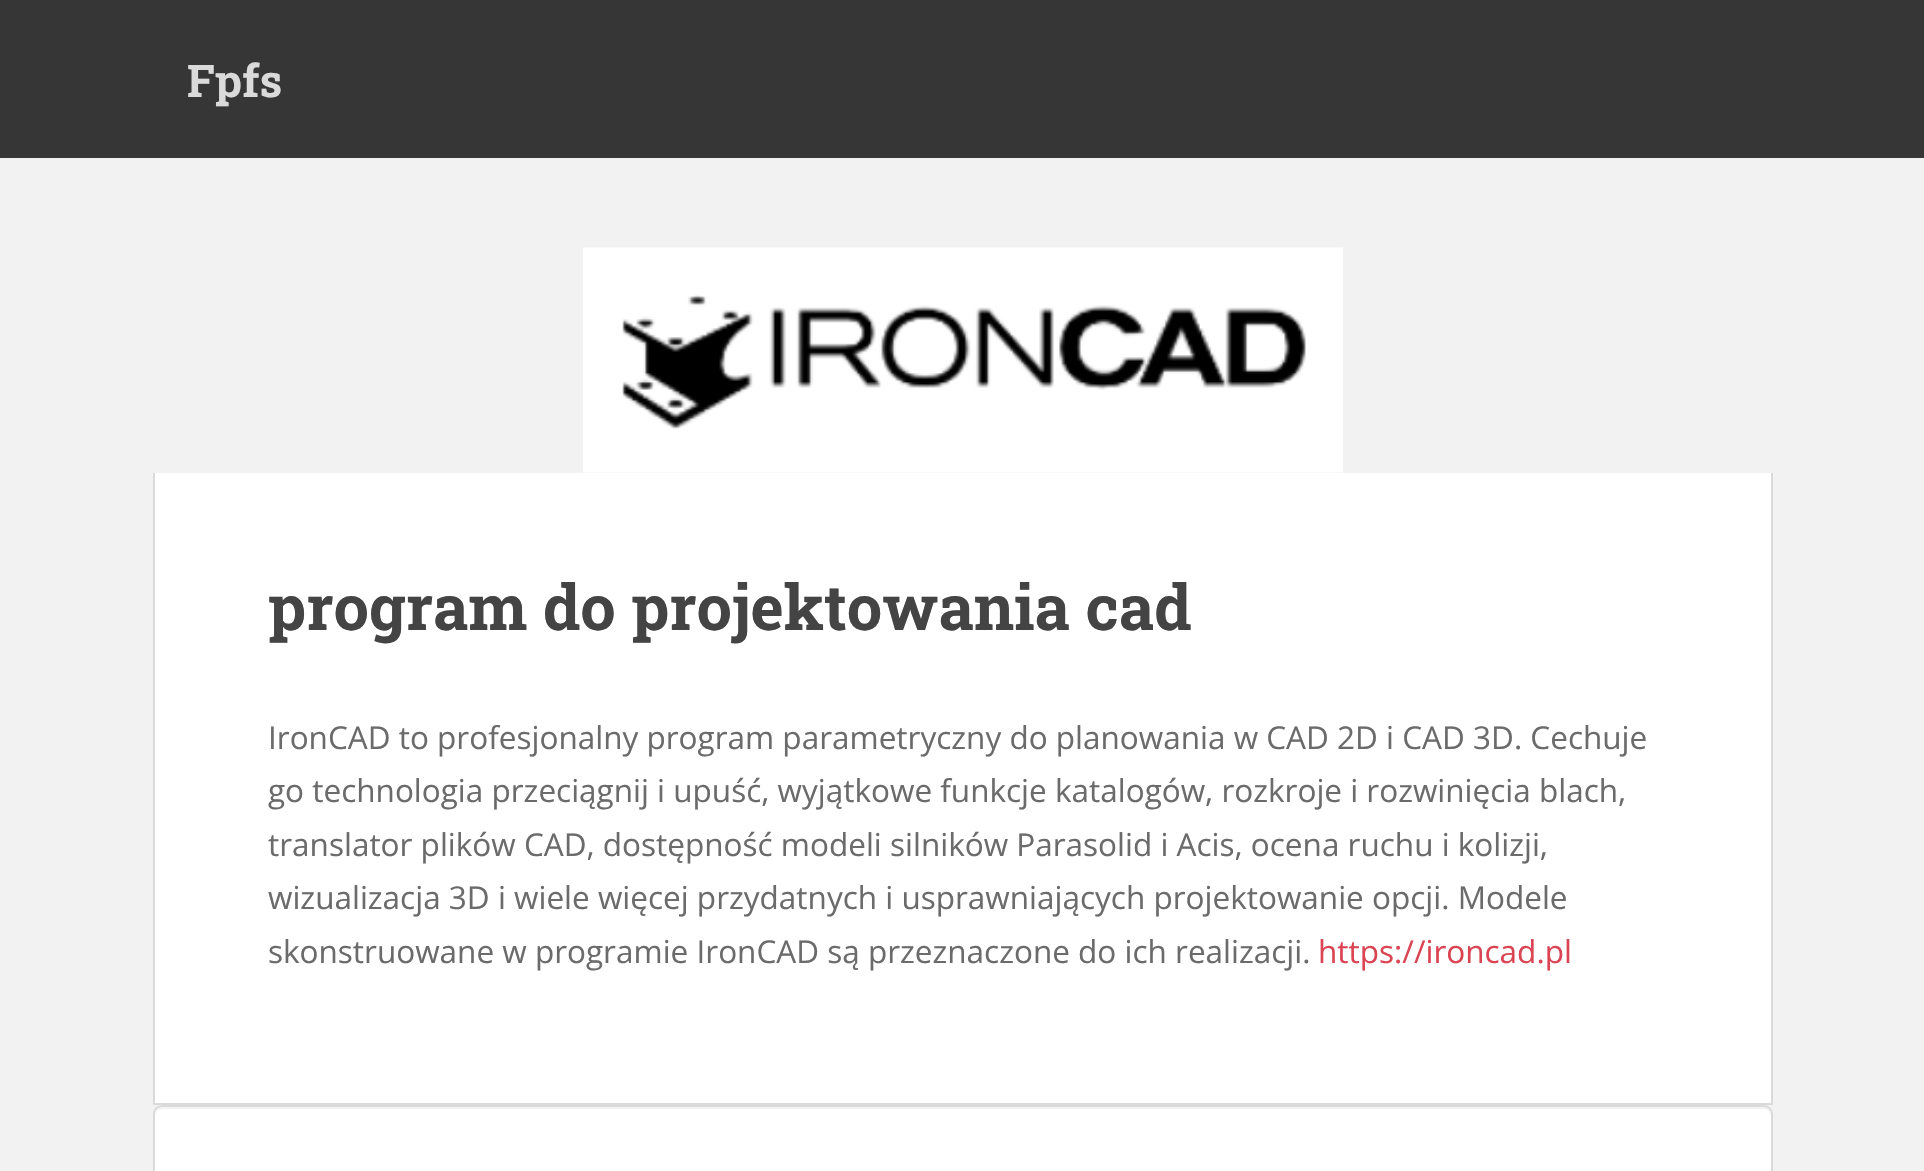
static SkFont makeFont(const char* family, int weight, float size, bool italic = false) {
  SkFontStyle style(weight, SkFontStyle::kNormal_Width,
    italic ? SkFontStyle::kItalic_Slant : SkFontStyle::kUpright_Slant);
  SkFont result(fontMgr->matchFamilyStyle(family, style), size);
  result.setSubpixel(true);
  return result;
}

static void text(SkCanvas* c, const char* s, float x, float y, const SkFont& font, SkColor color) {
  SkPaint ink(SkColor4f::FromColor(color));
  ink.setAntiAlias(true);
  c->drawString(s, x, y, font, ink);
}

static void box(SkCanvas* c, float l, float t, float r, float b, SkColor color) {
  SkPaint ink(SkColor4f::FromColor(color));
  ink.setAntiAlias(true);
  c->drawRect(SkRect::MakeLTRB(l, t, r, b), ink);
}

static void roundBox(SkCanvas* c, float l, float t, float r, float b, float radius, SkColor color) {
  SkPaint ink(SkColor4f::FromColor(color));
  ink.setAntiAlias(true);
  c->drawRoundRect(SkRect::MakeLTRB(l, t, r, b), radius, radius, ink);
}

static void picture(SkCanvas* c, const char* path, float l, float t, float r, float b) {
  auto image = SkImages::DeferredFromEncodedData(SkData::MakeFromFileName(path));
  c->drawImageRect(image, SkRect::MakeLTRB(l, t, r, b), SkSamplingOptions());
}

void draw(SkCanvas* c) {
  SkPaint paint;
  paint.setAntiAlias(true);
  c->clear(0xfff2f2f2);
  box(c, 0, 0, 1924, 158, 0xff363636);
  SkFont face1 = makeFont("Roboto Slab", 700, 45);
  text(c, "Fpfs", 187, 97, face1, 0xffdadada);
  picture(c, "img_01.png", 583, 247, 1343, 473);
  box(c, 155, 473, 1771, 1103, 0xffffffff);
  box(c, 1771, 473, 1773, 1105, 0xffdadada);
  box(c, 153, 1103, 1773, 1105, 0xffdadada);
  box(c, 153, 473, 155, 1105, 0xffdadada);
  SkFont face2 = makeFont("Roboto Slab", 700, 63);
  text(c, "program do projektowania cad", 268, 630, face2, 0xff444444);
  SkFont face3 = makeFont("Open Sans", 400, 31.5f);
  text(c, "IronCAD to profesjonalny program parametryczny do planowania w CAD 2D i CAD 3D. Cechuje", 268, 749, face3, 0xff6b6b6b);
  text(c, "go technologia przeciągnij i upuść, wyjątkowe funkcje katalogów, rozkroje i rozwinięcia blach,", 268, 802, face3, 0xff6b6b6b);
  text(c, "translator plików CAD, dostępność modeli silników Parasolid i Acis, ocena ruchu i kolizji,", 268, 856, face3, 0xff6b6b6b);
  text(c, "wizualizacja 3D i wiele więcej przydatnych i usprawniających projektowanie opcji. Modele", 268, 909, face3, 0xff6b6b6b);
  text(c, "skonstruowane w programie IronCAD są przeznaczone do ich realizacji.", 268, 963, face3, 0xff6b6b6b);
  text(c, "https://ironcad.pl", 1318, 963, face3, 0xffda4453);
  roundBox(c, 153, 1105, 1773, 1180, 9, 0xffffffff);
  paint.setColor(0xfff2f2f2);
  c->drawPath(SkPathBuilder().moveTo(162, 1109).lineTo(1764, 1109).cubicTo(1768, 1109, 1771, 1112, 1771, 1116).cubicTo(1771, 1112, 1769, 1107, 1764, 1107).lineTo(162, 1107).cubicTo(157, 1107, 155, 1112, 155, 1116).cubicTo(155, 1112, 158, 1109, 162, 1109).close().detach(), paint);
  paint.setStyle(SkPaint::kStroke_Style);
  paint.setStrokeWidth(2);
  paint.setColor(0xffdadada);
  c->drawRoundRect(SkRect::MakeLTRB(154, 1106, 1772, 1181), 8, 8, paint);
}
